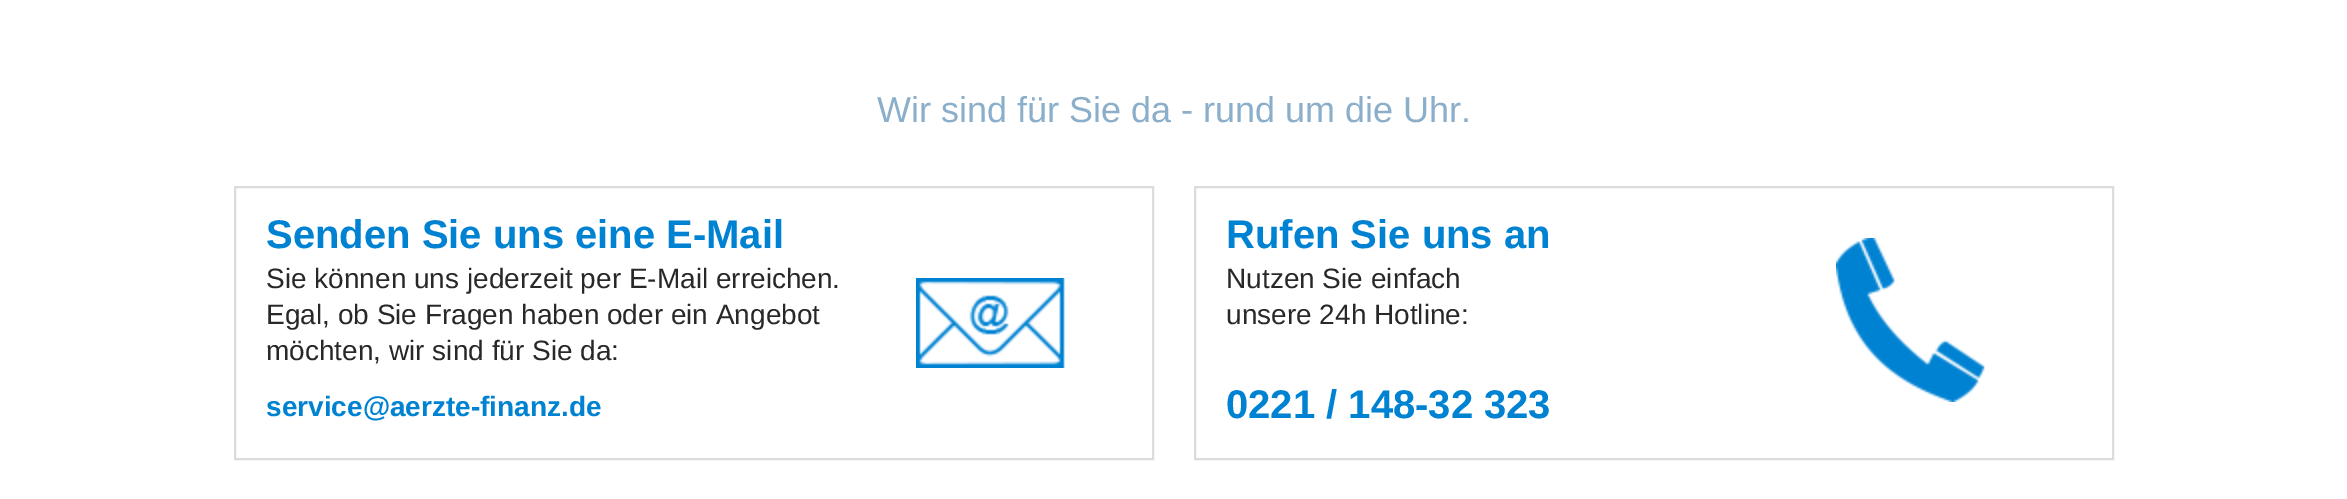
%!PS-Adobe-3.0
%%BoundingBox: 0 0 2347 499
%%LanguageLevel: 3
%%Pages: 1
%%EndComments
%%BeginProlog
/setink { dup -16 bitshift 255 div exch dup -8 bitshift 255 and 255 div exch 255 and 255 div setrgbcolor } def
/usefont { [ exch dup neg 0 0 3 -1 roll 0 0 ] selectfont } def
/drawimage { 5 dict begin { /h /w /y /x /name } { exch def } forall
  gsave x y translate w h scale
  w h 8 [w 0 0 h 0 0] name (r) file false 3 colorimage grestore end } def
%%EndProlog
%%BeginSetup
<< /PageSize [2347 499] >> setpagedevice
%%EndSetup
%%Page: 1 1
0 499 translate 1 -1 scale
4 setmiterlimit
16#FFFFFF setink
0 0 2347 499 rectfill
/LiberationSans-Regular 36 usefont
16#8BAECA setink
877 122 moveto (Wir sind für Sie da - rund um die Uhr.) show
(img1.raw) 916 278 149 90 drawimage
16#DCDCDC setink
2 setlinewidth
235 187 918 272 rectstroke
/LiberationSans-Bold 40 usefont
16#0082D2 setink
266 248 moveto (Senden Sie uns eine E-Mail) show
/LiberationSans-Regular 28 usefont
16#282828 setink
[
    [(Sie können uns jederzeit per E-Mail erreichen.) 266 288]
    [(Egal, ob Sie Fragen haben oder ein Angebot) 266 324]
    [(möchten, wir sind für Sie da:) 266 360]
] { aload pop moveto show } forall
/LiberationSans-Bold 28 usefont
16#0082D2 setink
266 416 moveto (service@aerzte-finanz.de) show
(img2.raw) 1836 238 149 164 drawimage
16#DCDCDC setink
1195 187 918 272 rectstroke
/LiberationSans-Bold 40 usefont
16#0082D2 setink
1226 248 moveto (Rufen Sie uns an) show
/LiberationSans-Regular 28 usefont
16#282828 setink
1226 288 moveto (Nutzen Sie einfach) show
1226 324 moveto (unsere 24h Hotline:) show
/LiberationSans-Bold 40 usefont
16#0082D2 setink
1226 418 moveto (0221 / 148-32 323) show
showpage
%%EOF
